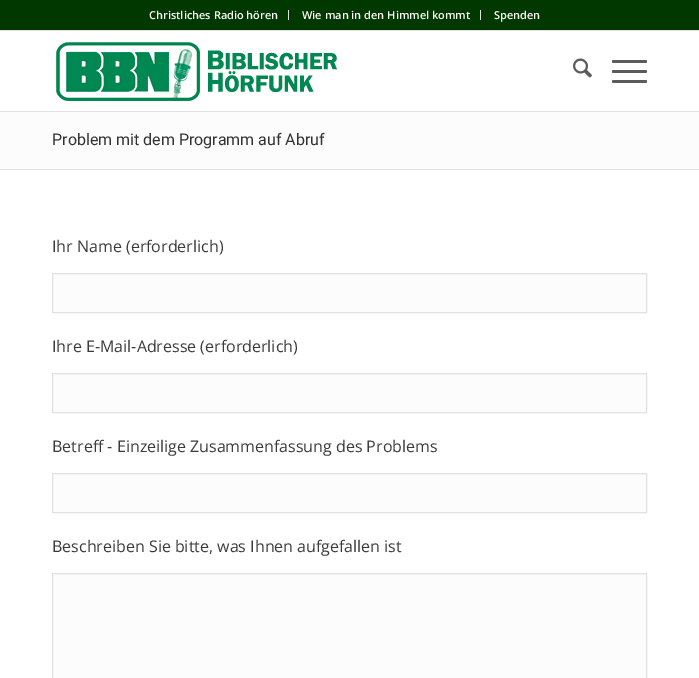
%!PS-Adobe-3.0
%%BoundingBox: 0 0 699 678
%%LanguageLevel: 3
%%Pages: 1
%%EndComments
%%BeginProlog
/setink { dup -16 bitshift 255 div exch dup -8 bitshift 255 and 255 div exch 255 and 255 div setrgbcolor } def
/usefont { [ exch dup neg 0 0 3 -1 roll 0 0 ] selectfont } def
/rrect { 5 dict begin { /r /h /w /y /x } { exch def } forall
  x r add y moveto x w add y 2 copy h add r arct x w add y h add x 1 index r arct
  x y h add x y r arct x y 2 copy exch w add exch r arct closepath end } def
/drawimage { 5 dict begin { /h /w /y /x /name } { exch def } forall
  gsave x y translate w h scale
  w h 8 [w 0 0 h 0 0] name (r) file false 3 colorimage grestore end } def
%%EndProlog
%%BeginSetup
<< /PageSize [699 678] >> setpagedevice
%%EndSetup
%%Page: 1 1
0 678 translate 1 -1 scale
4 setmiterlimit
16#FFFFFF setink
0 0 699 678 rectfill
[
    [0 0 699 30 16#003800]
    [0 30 699 1 16#E1E1E1]
    [288 10 1 10 16#E1E1E1]
] { aload pop setink rectfill } forall
/OpenSans-SemiBold 11 usefont
16#FFFFFF setink
149 19 moveto (Сhristliches Radio hören) show
16#E1E1E1 setink
480 10 1 10 rectfill
16#FFFFFF setink
302 19 moveto (Wie man in den Himmel kommt) show
494 19 moveto (Spenden) show
16#E1E1E1 setink
0 111 699 1 rectfill
(img1.raw) 56 42 281 60 drawimage
(img2.raw) 573 58 19 20 drawimage
16#5C5B5C setink
612 70 35 3 1.5 rrect fill
612 60 35 3 1.5 rrect fill
612 80 35 3 1.5 rrect fill
16#FCFCFC setink
0 112 699 57 rectfill
/Roboto-Regular 16 usefont
16#333333 setink
52 145 moveto (Problem mit dem Programm auf Abruf) show
16#E1E1E1 setink
0 169 699 1 rectfill
/OpenSans-Regular 16 usefont
16#3B3B3B setink
52 252 moveto (Ihr Name \(erforderlich\)) show
16#FCFCFC setink
52.5 273.5 moveto 646.5 273.5 lineto 646.5 312.5 lineto 52.5 312.5 lineto closepath gsave fill grestore
16#E1E1E1 setink
stroke
16#3B3B3B setink
52 352 moveto (Ihre E-Mail-Adresse \(erforderlich\)) show
16#FCFCFC setink
52.5 373.5 moveto 646.5 373.5 lineto 646.5 412.5 lineto 52.5 412.5 lineto closepath gsave fill grestore
16#E1E1E1 setink
stroke
16#3B3B3B setink
52 452 moveto (Betreff - Einzeilige Zusammenfassung des Problems) show
16#FCFCFC setink
52.5 473.5 moveto 646.5 473.5 lineto 646.5 512.5 lineto 52.5 512.5 lineto closepath gsave fill grestore
16#E1E1E1 setink
stroke
16#3B3B3B setink
52 552 moveto (Beschreiben Sie bitte, was Ihnen aufgefallen ist) show
16#FCFCFC setink
52.5 573.5 moveto 646.5 573.5 lineto 646.5 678.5 lineto 52.5 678.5 lineto closepath gsave fill grestore
16#E1E1E1 setink
stroke
showpage
%%EOF
